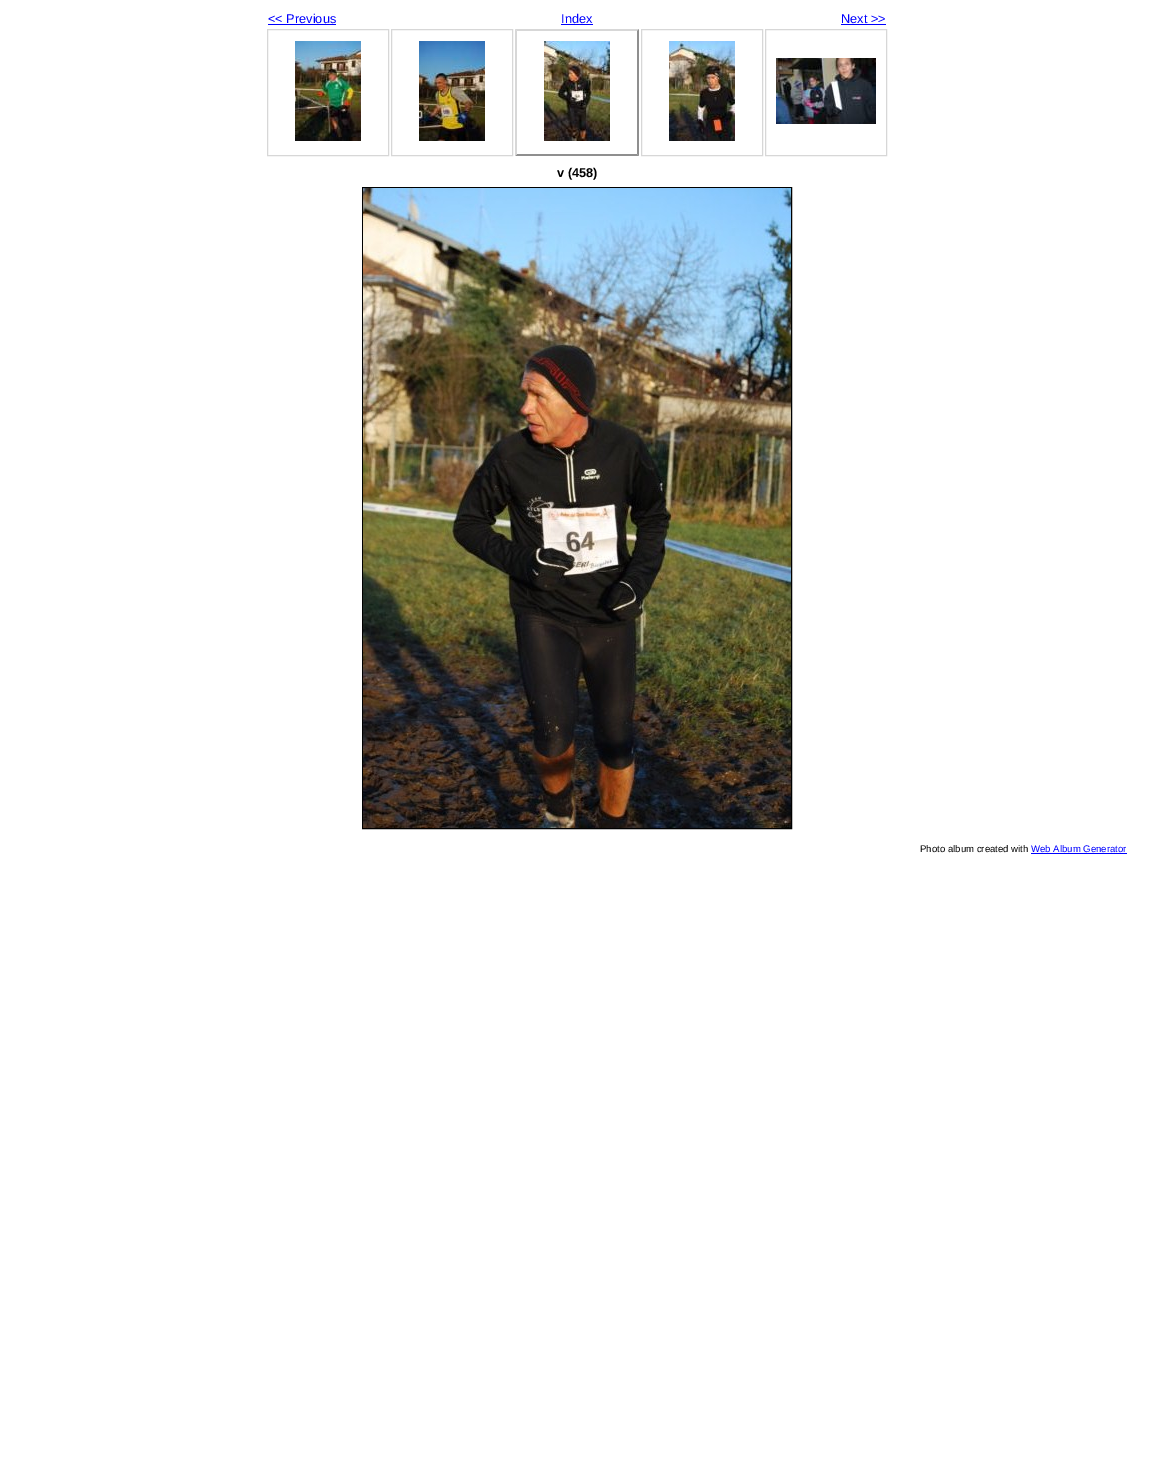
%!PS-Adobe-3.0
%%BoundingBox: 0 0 1154 1475
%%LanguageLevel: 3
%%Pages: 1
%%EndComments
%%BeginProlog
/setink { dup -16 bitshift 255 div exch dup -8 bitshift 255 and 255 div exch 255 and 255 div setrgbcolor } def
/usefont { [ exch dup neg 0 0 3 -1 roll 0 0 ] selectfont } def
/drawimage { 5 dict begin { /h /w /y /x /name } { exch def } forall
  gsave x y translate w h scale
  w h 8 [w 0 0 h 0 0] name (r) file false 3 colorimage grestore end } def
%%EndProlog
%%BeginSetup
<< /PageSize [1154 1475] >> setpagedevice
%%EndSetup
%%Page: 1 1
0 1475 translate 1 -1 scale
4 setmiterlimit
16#FFFFFF setink
0 0 1154 1475 rectfill
/LiberationSans-Regular 12.75 usefont
16#0000FF setink
268 23 moveto (<< Previous) show
268 24 68 1 rectfill
561 23 moveto (Index) show
561 24 32 1 rectfill
841 23 moveto (Next >>) show
841 24 45 1 rectfill
16#D7D7D7 setink
267.5 29.5 121 126 rectstroke
(img1.raw) 295 41 66 100 drawimage
391.5 29.5 121 126 rectstroke
(img2.raw) 419 41 66 100 drawimage
515 29 moveto 639 29 lineto 637 31 lineto 517 31 lineto closepath fill
16#8F8F8F setink
639 29 moveto 639 156 lineto 637 154 lineto 637 31 lineto closepath fill
639 156 moveto 515 156 lineto 517 154 lineto 637 154 lineto closepath fill
16#D7D7D7 setink
515 156 moveto 515 29 lineto 517 31 lineto 517 154 lineto closepath fill
(img3.raw) 544 41 66 100 drawimage
641.5 29.5 121 126 rectstroke
(img4.raw) 669 41 66 100 drawimage
765.5 29.5 121 126 rectstroke
(img5.raw) 776 58 100 66 drawimage
/LiberationSans-Bold 12.75 usefont
16#000000 setink
557 177 moveto (v \(458\)) show
362.5 187.5 429 641 rectstroke
(img6.raw) 363 188 428 640 drawimage
/LiberationSans-Regular 9.6 usefont
920 852 moveto (Photo album created with) show
16#0000FF setink
1031 852 moveto (Web Album Generator) show
1031 853 96 1 rectfill
showpage
%%EOF
